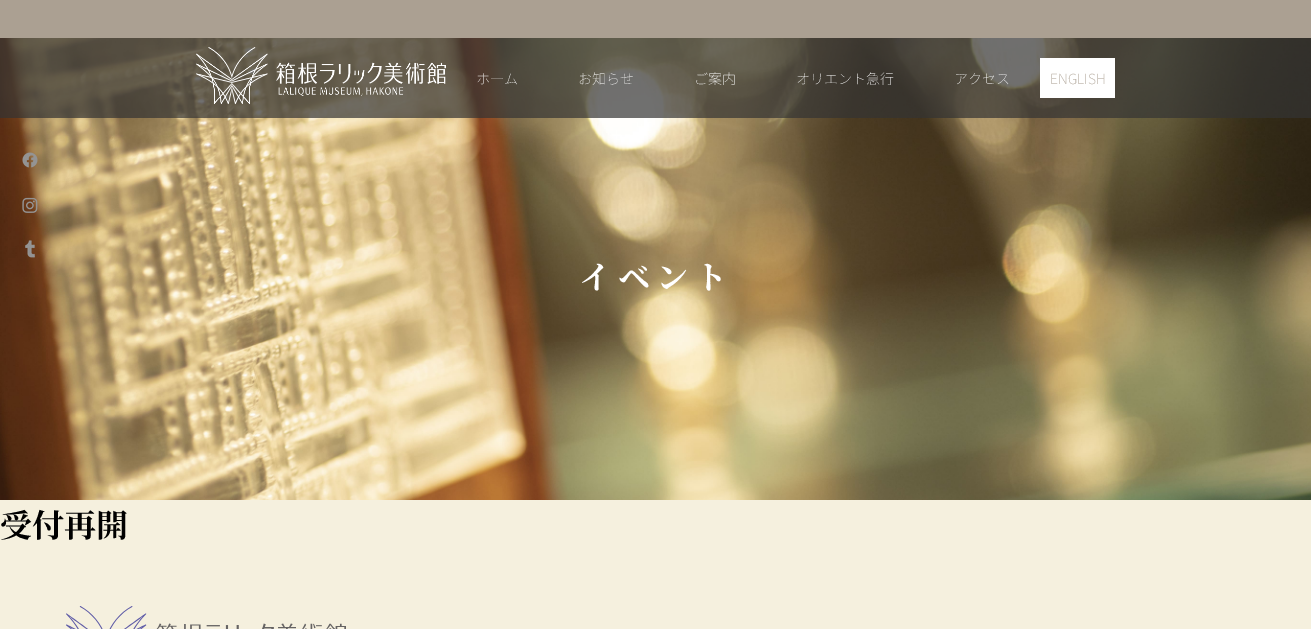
%!PS-Adobe-3.0
%%BoundingBox: 0 0 1311 629
%%LanguageLevel: 3
%%Pages: 1
%%EndComments
%%BeginProlog
/setink { dup -16 bitshift 255 div exch dup -8 bitshift 255 and 255 div exch 255 and 255 div setrgbcolor } def
/usefont { [ exch dup neg 0 0 3 -1 roll 0 0 ] selectfont } def
/setalpha { dup .setfillconstantalpha .setstrokeconstantalpha } def
/drawimage { 5 dict begin { /h /w /y /x /name } { exch def } forall
  gsave x y translate w h scale
  w h 8 [w 0 0 h 0 0] name (r) file false 3 colorimage grestore end } def
%%EndProlog
%%BeginSetup
<< /PageSize [1311 629] /PageUsesTransparency true >> setpagedevice
%%EndSetup
%%Page: 1 1
0 .pushpdf14devicefilter
0 629 translate 1 -1 scale
4 setmiterlimit
16#F5F0DE setink
0 0 1311 629 rectfill
16#ABA092 setink
0 0 1311 38 rectfill
(img5.raw) 0 38 1311 462 drawimage
0.7 setalpha
16#333333 setink
0 38 1311 80 rectfill
1 setalpha
(img1.raw) 196 47 250 58 drawimage
/NotoSansJP-Thin 14 usefont
16#FFFFFF setink
[
    [(ホーム) 476 84]
    [(お知らせ) 578 84]
    [(ご案内) 694 84]
    [(オリエント急行) 796 84]
    [(アクセス) 954 84]
] { aload pop moveto show } forall
1040 58 75 40 rectfill
16#ABA092 setink
1050 84 moveto (ENGLISH) show
(img2.raw) 22 152 16 16 drawimage
(img3.raw) 22 197 16 16 drawimage
(img4.raw) 25 240 10 18 drawimage
/NotoSerifJP-Bold 32 usefont
16#FFFFFF setink
579 289 moveto 6.5 0 (イベント) ashow
16#000000 setink
0 537 moveto (受付再開) show
(img6.raw) 66 606 280 23 drawimage
.poppdf14devicefilter showpage
%%EOF
